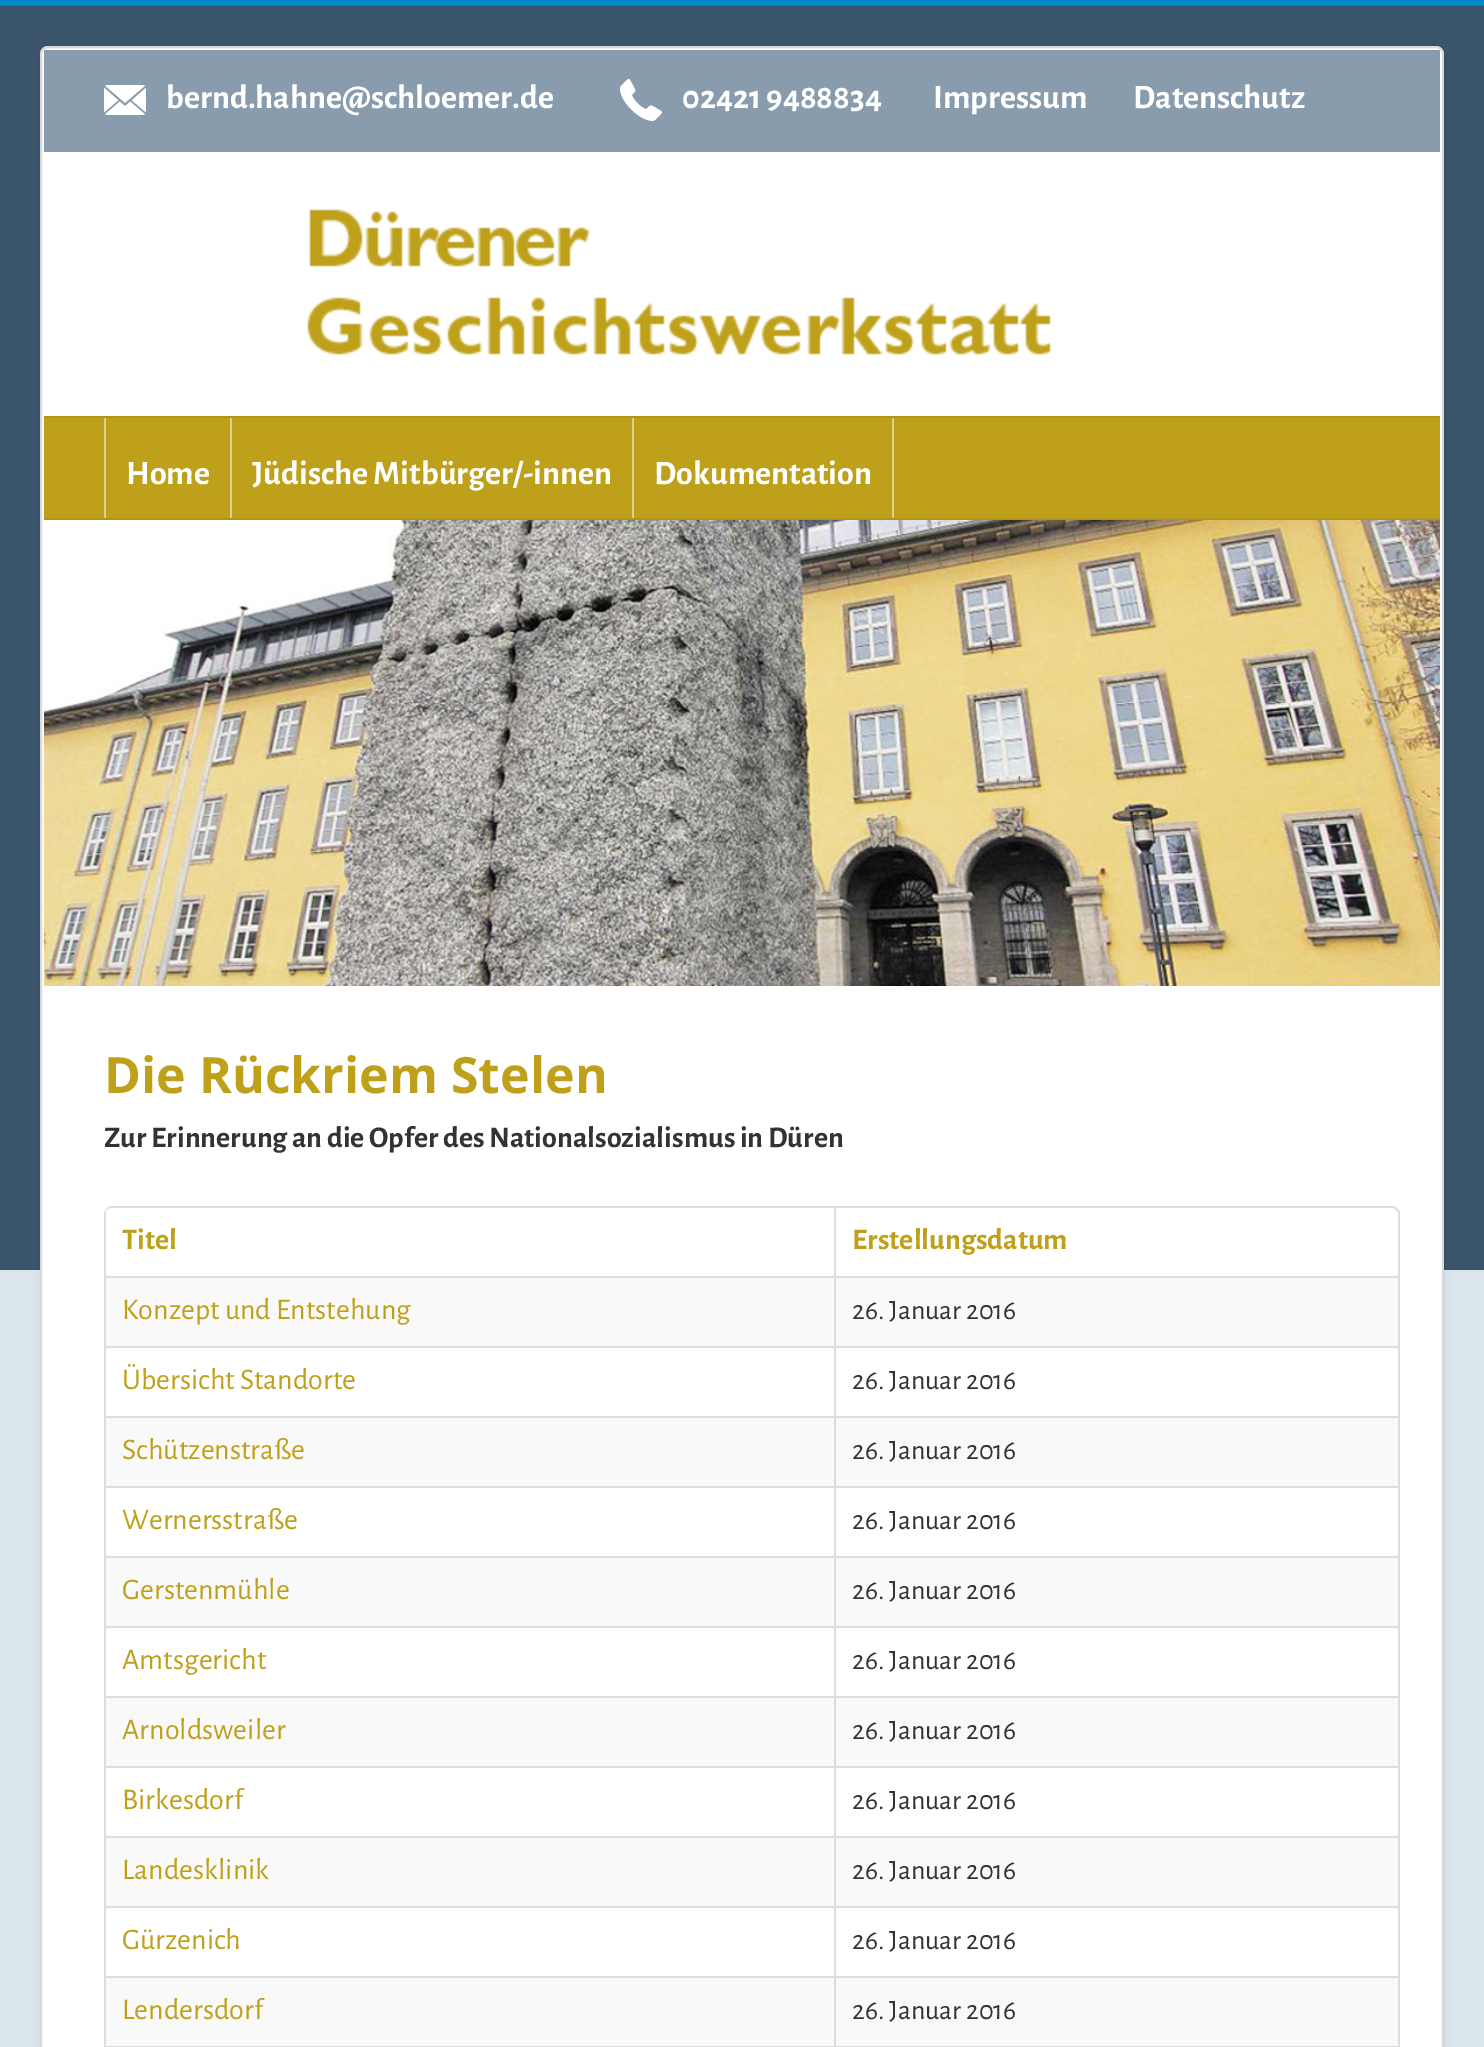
%!PS-Adobe-3.0
%%BoundingBox: 0 0 1484 2047
%%LanguageLevel: 3
%%Pages: 1
%%EndComments
%%BeginProlog
/setink { dup -16 bitshift 255 div exch dup -8 bitshift 255 and 255 div exch 255 and 255 div setrgbcolor } def
/usefont { [ exch dup neg 0 0 3 -1 roll 0 0 ] selectfont } def
/setalpha { dup .setfillconstantalpha .setstrokeconstantalpha } def
/rrect { 5 dict begin { /r /h /w /y /x } { exch def } forall
  x r add y moveto x w add y 2 copy h add r arct x w add y h add x 1 index r arct
  x y h add x y r arct x y 2 copy exch w add exch r arct closepath end } def
/softshadow { 12 dict begin { /a /b /q /h /w /y /x } { exch def } forall gsave /was 0 def
  9 -2 -9 { dup b mul 4 div /e exch def 1 sub .425 mul 2.718 exch exp 1 add a .99 .min exch div /now exch def
    1 1 now sub 1 was sub div sub setalpha /was now def
    w h .min e 2 mul add 0 gt { x e sub y e sub w e 2 mul add h e 2 mul add
      q e add b .6 mul add w h .min 2 div e add .min 0 .max rrect fill } if } for grestore end } def
/drawimage { 5 dict begin { /h /w /y /x /name } { exch def } forall
  gsave x y translate w h scale
  w h 8 [w 0 0 h 0 0] name (r) file false 3 colorimage grestore end } def
%%EndProlog
%%BeginSetup
<< /PageSize [1484 2047] /PageUsesTransparency true >> setpagedevice
%%EndSetup
%%Page: 1 1
0 .pushpdf14devicefilter
0 2047 translate 1 -1 scale
4 setmiterlimit
16#DCE7ED setink
0 0 1484 2047 rectfill
16#3A546B setink
0 6 1484 1264 rectfill
16#0088CC setink
0 0 1484 6 rectfill
16#000000 setink
40 46 1404 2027 8 6 0.05 softshadow
16#FFFFFF setink
40 46 1404 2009 8 rrect fill
0.15 setalpha
16#000000 setink
2 setlinewidth
41 47 1402 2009 7 rrect stroke
1 setalpha
16#899CAD setink
44 50 1396 102 rectfill
(img1.raw) 104 85 42 30 drawimage
/AlegreyaSans-Bold 34 usefont
16#FFFFFF setink
166 108 moveto (bernd.hahne@schloemer.de) show
(img2.raw) 620 79 42 42 drawimage
[
    [(02421 9488834) 682 108]
    [(Impressum) 933 108]
    [(Datenschutz) 1133 108]
] { aload pop moveto show } forall
(img3.raw) 307 209 744 146 drawimage
[
    [44 418 1396 100 16#BEA01A]
    [44 416 1396 2 16#B09418]
    [44 518 1396 2 16#B09418]
    [104 418 2 100 16#DFD08D]
    [230 418 2 100 16#DFD08D]
] { aload pop setink rectfill } forall
16#FFFFFF setink
126 484 moveto (Home) show
16#DFD08D setink
632 418 2 100 rectfill
16#FFFFFF setink
252 484 moveto (Jüdische Mitbürger/-innen) show
16#DFD08D setink
892 418 2 100 rectfill
16#FFFFFF setink
654 484 moveto (Dokumentation) show
(img4.raw) 44 520 1396 466 drawimage
/OpenSans-Bold 50 usefont
16#BEA01A setink
104 1093 moveto (Die Rückriem Stelen) show
/AlegreyaSans-Bold 30 usefont
16#333333 setink
104 1147 moveto (Zur Erinnerung an die Opfer des Nationalsozialismus in Düren) show
16#DDDDDD setink
112 1206 moveto 1392 1206 lineto 1396 1206 1400 1210 1400 1214 curveto 1400 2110 lineto 1400 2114 1396 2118 1392 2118 curveto 112 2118 lineto 108 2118 104 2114 104 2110 curveto 104 1214 lineto 104 1210 108 1206 112 1206 curveto closepath 112 1208 moveto 1392 1208 lineto 1395 1208 1398 1211 1398 1214 curveto 1398 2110 lineto 1398 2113 1395 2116 1392 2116 curveto 112 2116 lineto 108 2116 104 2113 104 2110 curveto 104 1214 lineto 104 1211 108 1208 112 1208 curveto closepath eofill
104 1212 2 64 rectfill
16#BEA01A setink
122 1249 moveto (Titel) show
16#DDDDDD setink
834 1208 2 68 rectfill
16#BEA01A setink
852 1249 moveto (Erstellungsdatum) show
[
    [106 1278 728 68 16#F9F9F9]
    [104 1276 1294 2 16#DDDDDD]
    [104 1276 2 70 16#DDDDDD]
] { aload pop setink rectfill } forall
/AlegreyaSans-Regular 30 usefont
16#BEA01A setink
122 1319 moveto (Konzept und Entstehung) show
16#F9F9F9 setink
836 1278 562 68 rectfill
16#DDDDDD setink
834 1276 2 70 rectfill
/AlegreyaSans-Regular 28 usefont
16#333333 setink
852 1319 moveto (26. Januar 2016) show
16#DDDDDD setink
104 1346 1294 2 rectfill
104 1346 2 70 rectfill
/AlegreyaSans-Regular 30 usefont
16#BEA01A setink
122 1389 moveto (Übersicht Standorte) show
16#DDDDDD setink
834 1346 2 70 rectfill
/AlegreyaSans-Regular 28 usefont
16#333333 setink
852 1389 moveto (26. Januar 2016) show
[
    [106 1418 728 68 16#F9F9F9]
    [104 1416 1294 2 16#DDDDDD]
    [104 1416 2 70 16#DDDDDD]
] { aload pop setink rectfill } forall
/AlegreyaSans-Regular 30 usefont
16#BEA01A setink
122 1459 moveto (Schützenstraße) show
16#F9F9F9 setink
836 1418 562 68 rectfill
16#DDDDDD setink
834 1416 2 70 rectfill
/AlegreyaSans-Regular 28 usefont
16#333333 setink
852 1459 moveto (26. Januar 2016) show
16#DDDDDD setink
104 1486 1294 2 rectfill
104 1486 2 70 rectfill
/AlegreyaSans-Regular 30 usefont
16#BEA01A setink
122 1529 moveto (Wernersstraße) show
16#DDDDDD setink
834 1486 2 70 rectfill
/AlegreyaSans-Regular 28 usefont
16#333333 setink
852 1529 moveto (26. Januar 2016) show
[
    [106 1558 728 68 16#F9F9F9]
    [104 1556 1294 2 16#DDDDDD]
    [104 1556 2 70 16#DDDDDD]
] { aload pop setink rectfill } forall
/AlegreyaSans-Regular 30 usefont
16#BEA01A setink
122 1599 moveto (Gerstenmühle) show
16#F9F9F9 setink
836 1558 562 68 rectfill
16#DDDDDD setink
834 1556 2 70 rectfill
/AlegreyaSans-Regular 28 usefont
16#333333 setink
852 1599 moveto (26. Januar 2016) show
16#DDDDDD setink
104 1626 1294 2 rectfill
104 1626 2 70 rectfill
/AlegreyaSans-Regular 30 usefont
16#BEA01A setink
122 1669 moveto (Amtsgericht) show
16#DDDDDD setink
834 1626 2 70 rectfill
/AlegreyaSans-Regular 28 usefont
16#333333 setink
852 1669 moveto (26. Januar 2016) show
[
    [106 1698 728 68 16#F9F9F9]
    [104 1696 1294 2 16#DDDDDD]
    [104 1696 2 70 16#DDDDDD]
] { aload pop setink rectfill } forall
/AlegreyaSans-Regular 30 usefont
16#BEA01A setink
122 1739 moveto (Arnoldsweiler) show
16#F9F9F9 setink
836 1698 562 68 rectfill
16#DDDDDD setink
834 1696 2 70 rectfill
/AlegreyaSans-Regular 28 usefont
16#333333 setink
852 1739 moveto (26. Januar 2016) show
16#DDDDDD setink
104 1766 1294 2 rectfill
104 1766 2 70 rectfill
/AlegreyaSans-Regular 30 usefont
16#BEA01A setink
122 1809 moveto (Birkesdorf) show
16#DDDDDD setink
834 1766 2 70 rectfill
/AlegreyaSans-Regular 28 usefont
16#333333 setink
852 1809 moveto (26. Januar 2016) show
[
    [106 1838 728 68 16#F9F9F9]
    [104 1836 1294 2 16#DDDDDD]
    [104 1836 2 70 16#DDDDDD]
] { aload pop setink rectfill } forall
/AlegreyaSans-Regular 30 usefont
16#BEA01A setink
122 1879 moveto (Landesklinik) show
16#F9F9F9 setink
836 1838 562 68 rectfill
16#DDDDDD setink
834 1836 2 70 rectfill
/AlegreyaSans-Regular 28 usefont
16#333333 setink
852 1879 moveto (26. Januar 2016) show
16#DDDDDD setink
104 1906 1294 2 rectfill
104 1906 2 70 rectfill
/AlegreyaSans-Regular 30 usefont
16#BEA01A setink
122 1949 moveto (Gürzenich) show
16#DDDDDD setink
834 1906 2 70 rectfill
/AlegreyaSans-Regular 28 usefont
16#333333 setink
852 1949 moveto (26. Januar 2016) show
[
    [106 1978 728 68 16#F9F9F9]
    [104 1976 1294 2 16#DDDDDD]
    [104 1976 2 70 16#DDDDDD]
] { aload pop setink rectfill } forall
/AlegreyaSans-Regular 30 usefont
16#BEA01A setink
122 2019 moveto (Lendersdorf) show
16#F9F9F9 setink
836 1978 562 68 rectfill
16#DDDDDD setink
834 1976 2 70 rectfill
/AlegreyaSans-Regular 28 usefont
16#333333 setink
852 2019 moveto (26. Januar 2016) show
16#DDDDDD setink
104 2046 1294 1 rectfill
.poppdf14devicefilter showpage
%%EOF
